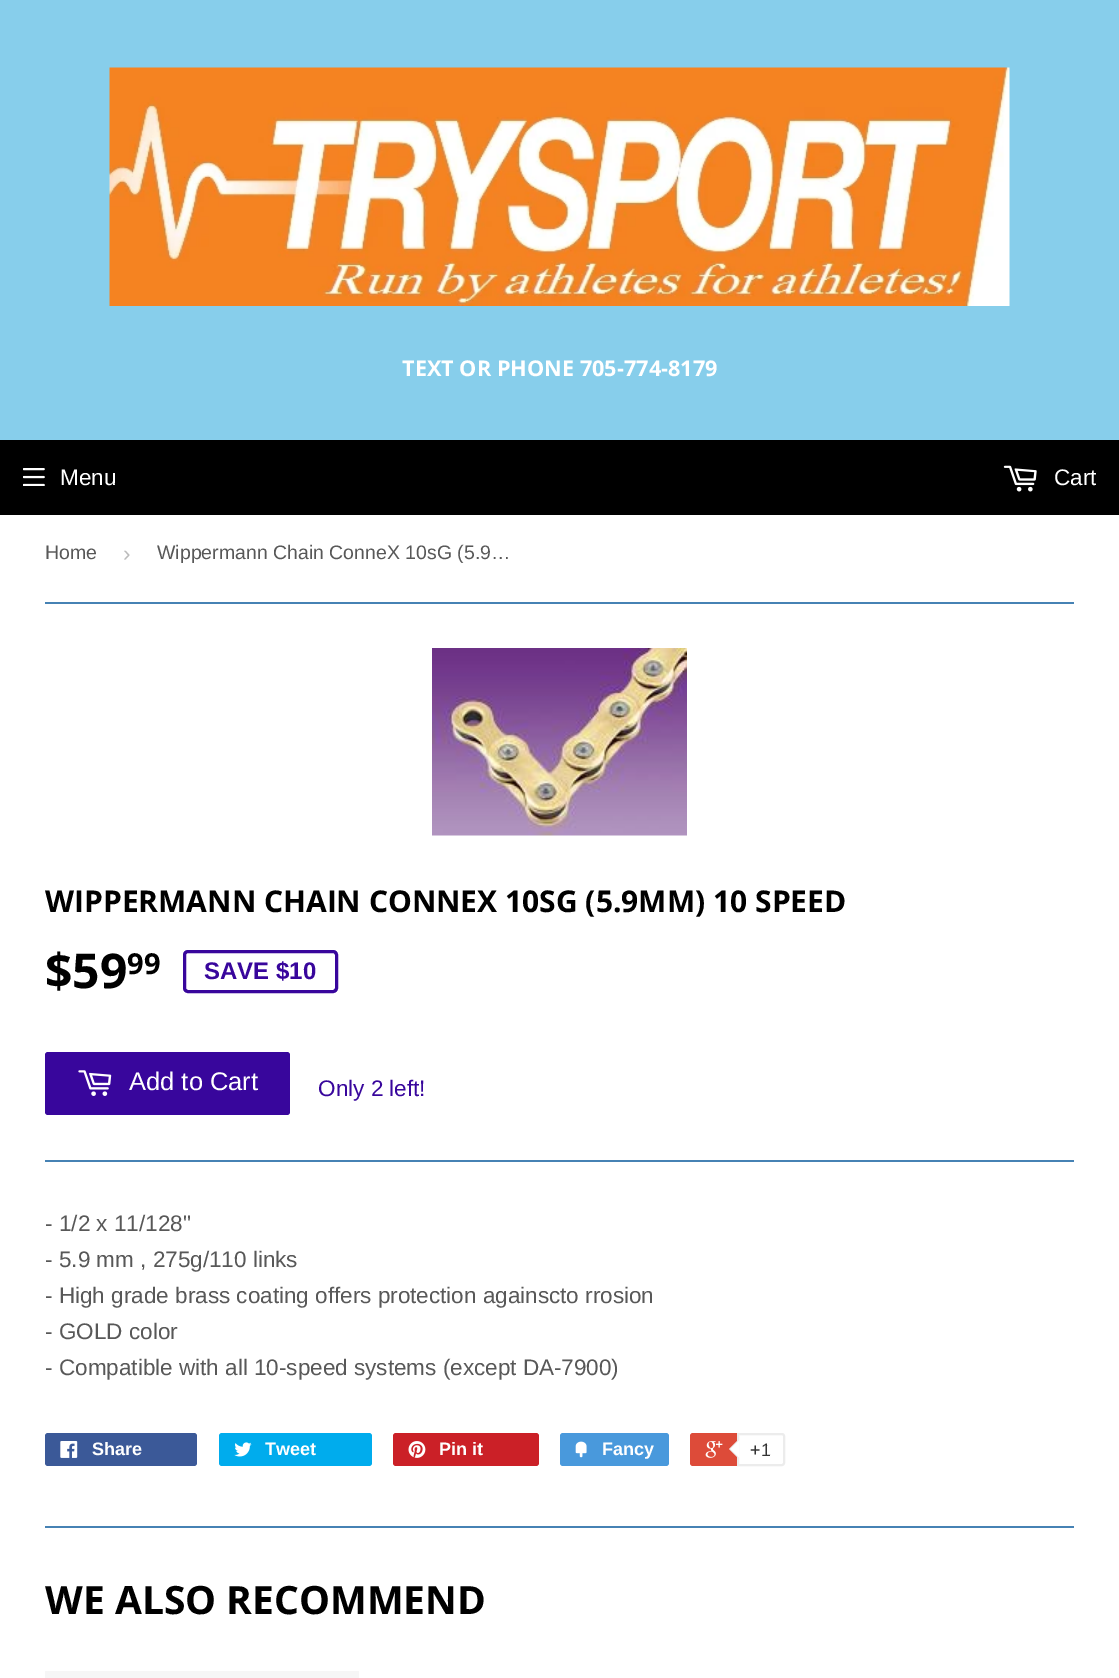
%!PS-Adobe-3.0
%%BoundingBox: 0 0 1119 1678
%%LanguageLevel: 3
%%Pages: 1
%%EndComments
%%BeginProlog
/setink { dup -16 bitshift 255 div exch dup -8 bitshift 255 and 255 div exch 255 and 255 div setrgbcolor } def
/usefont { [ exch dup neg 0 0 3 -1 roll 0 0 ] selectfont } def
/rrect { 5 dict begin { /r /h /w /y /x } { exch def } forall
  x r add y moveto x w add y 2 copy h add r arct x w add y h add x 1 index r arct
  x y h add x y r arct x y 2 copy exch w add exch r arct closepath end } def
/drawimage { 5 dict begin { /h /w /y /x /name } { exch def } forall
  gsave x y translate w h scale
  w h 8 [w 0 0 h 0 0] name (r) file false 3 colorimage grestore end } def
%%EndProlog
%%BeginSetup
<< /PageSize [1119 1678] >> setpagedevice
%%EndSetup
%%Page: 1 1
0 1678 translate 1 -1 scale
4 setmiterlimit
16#FFFFFF setink
0 0 1119 1678 rectfill
16#87CEEB setink
0 0 1119 440 rectfill
(img1.raw) 109 67 901 239 drawimage
/OpenSans-Bold 21.7 usefont
16#FFFFFF setink
402 376 moveto (TEXT OR PHONE 705-774-8179) show
16#000000 setink
0 440 1119 75 rectfill
(img2.raw) 23 468 22 18 drawimage
/LiberationSans-Regular 22.5 usefont
16#FFFFFF setink
60 485 moveto (Menu) show
(img3.raw) 1003 465 34 27 drawimage
1054 485 moveto (Cart) show
16#4682B4 setink
45 602 1029 2 rectfill
/LiberationSans-Regular 19.5 usefont
16#585858 setink
45 559 moveto (Home) show
/LiberationSans-Regular 22.5 usefont
16#BBBBBB setink
123 561 moveto (›) show
/LiberationSans-Regular 19.5 usefont
16#585858 setink
157 559 moveto (Wippermann Chain ConneX 10sG \(5.9…) show
(img4.raw) 432 648 255 188 drawimage
/OpenSans-Bold 30 usefont
16#000000 setink
45 912 moveto (WIPPERMANN CHAIN CONNEX 10SG \(5.9MM\) 10 SPEED) show
/OpenSans-Bold 48 usefont
45 988 moveto ($59) show
/OpenSans-Bold 29 usefont
127 974 moveto (99) show
16#38069C setink
3 setlinewidth
184.5 951.5 152 40 3.5 rrect stroke
/LiberationSans-Bold 24 usefont
204 979 moveto (SAVE $10) show
45 1052 245 63 3 rrect fill
(img5.raw) 78 1070 34 26 drawimage
/LiberationSans-Regular 25.5 usefont
16#FFFFFF setink
129 1090 moveto (Add to Cart) show
/LiberationSans-Regular 22.5 usefont
16#38069C setink
318 1096 moveto (Only 2 left!) show
16#4682B4 setink
45 1160 1029 2 rectfill
16#585858 setink
[
    [(- 1/2 x 11/128") 45 1231]
    [(- 5.9 mm , 275g/110 links) 45 1267]
    [(- High grade brass coating offers protection againscto rrosion) 45 1303]
    [(- GOLD color) 45 1339]
    [(- Compatible with all 10-speed systems \(except DA-7900\)) 45 1375]
] { aload pop moveto show } forall
16#3B5998 setink
45 1433 152 33 3 rrect fill
(img6.raw) 60 1441 18 17 drawimage
/LiberationSans-Bold 18 usefont
16#FFFFFF setink
92 1455 moveto (Share) show
16#00ACED setink
219 1433 153 33 3 rrect fill
(img7.raw) 234 1442 18 15 drawimage
16#FFFFFF setink
265 1455 moveto (Tweet) show
16#CB2027 setink
393 1433 146 33 3 rrect fill
(img8.raw) 408 1441 18 17 drawimage
16#FFFFFF setink
439 1455 moveto (Pin it) show
16#4999DC setink
560 1433 109 33 3 rrect fill
(img9.raw) 575 1441 12 17 drawimage
16#FFFFFF setink
602 1455 moveto (Fancy) show
16#DD4B39 setink
690 1433 92 33 3 rrect fill
(img10.raw) 705 1441 18 17 drawimage
16#FFFFFF setink
738 1434 moveto 782 1434 lineto 783 1434 784 1435 784 1436 curveto 784 1463 lineto 784 1464 783 1465 782 1465 curveto 738 1465 lineto closepath gsave fill grestore
16#ECECEC setink
2 setlinewidth
stroke
738 1440 moveto 738 1458 lineto 729 1449 lineto closepath fill
16#FFFFFF setink
739.5 1440 moveto 739.5 1458 lineto 730.5 1449 lineto closepath fill
/LiberationSans-Regular 18 usefont
16#333333 setink
750 1456 moveto (+1) show
16#4682B4 setink
45 1526 1029 2 rectfill
/OpenSans-Bold 39 usefont
16#000000 setink
45 1614 moveto (WE ALSO RECOMMEND) show
16#F6F6F6 setink
45 1671 314 7 rectfill
showpage
%%EOF
